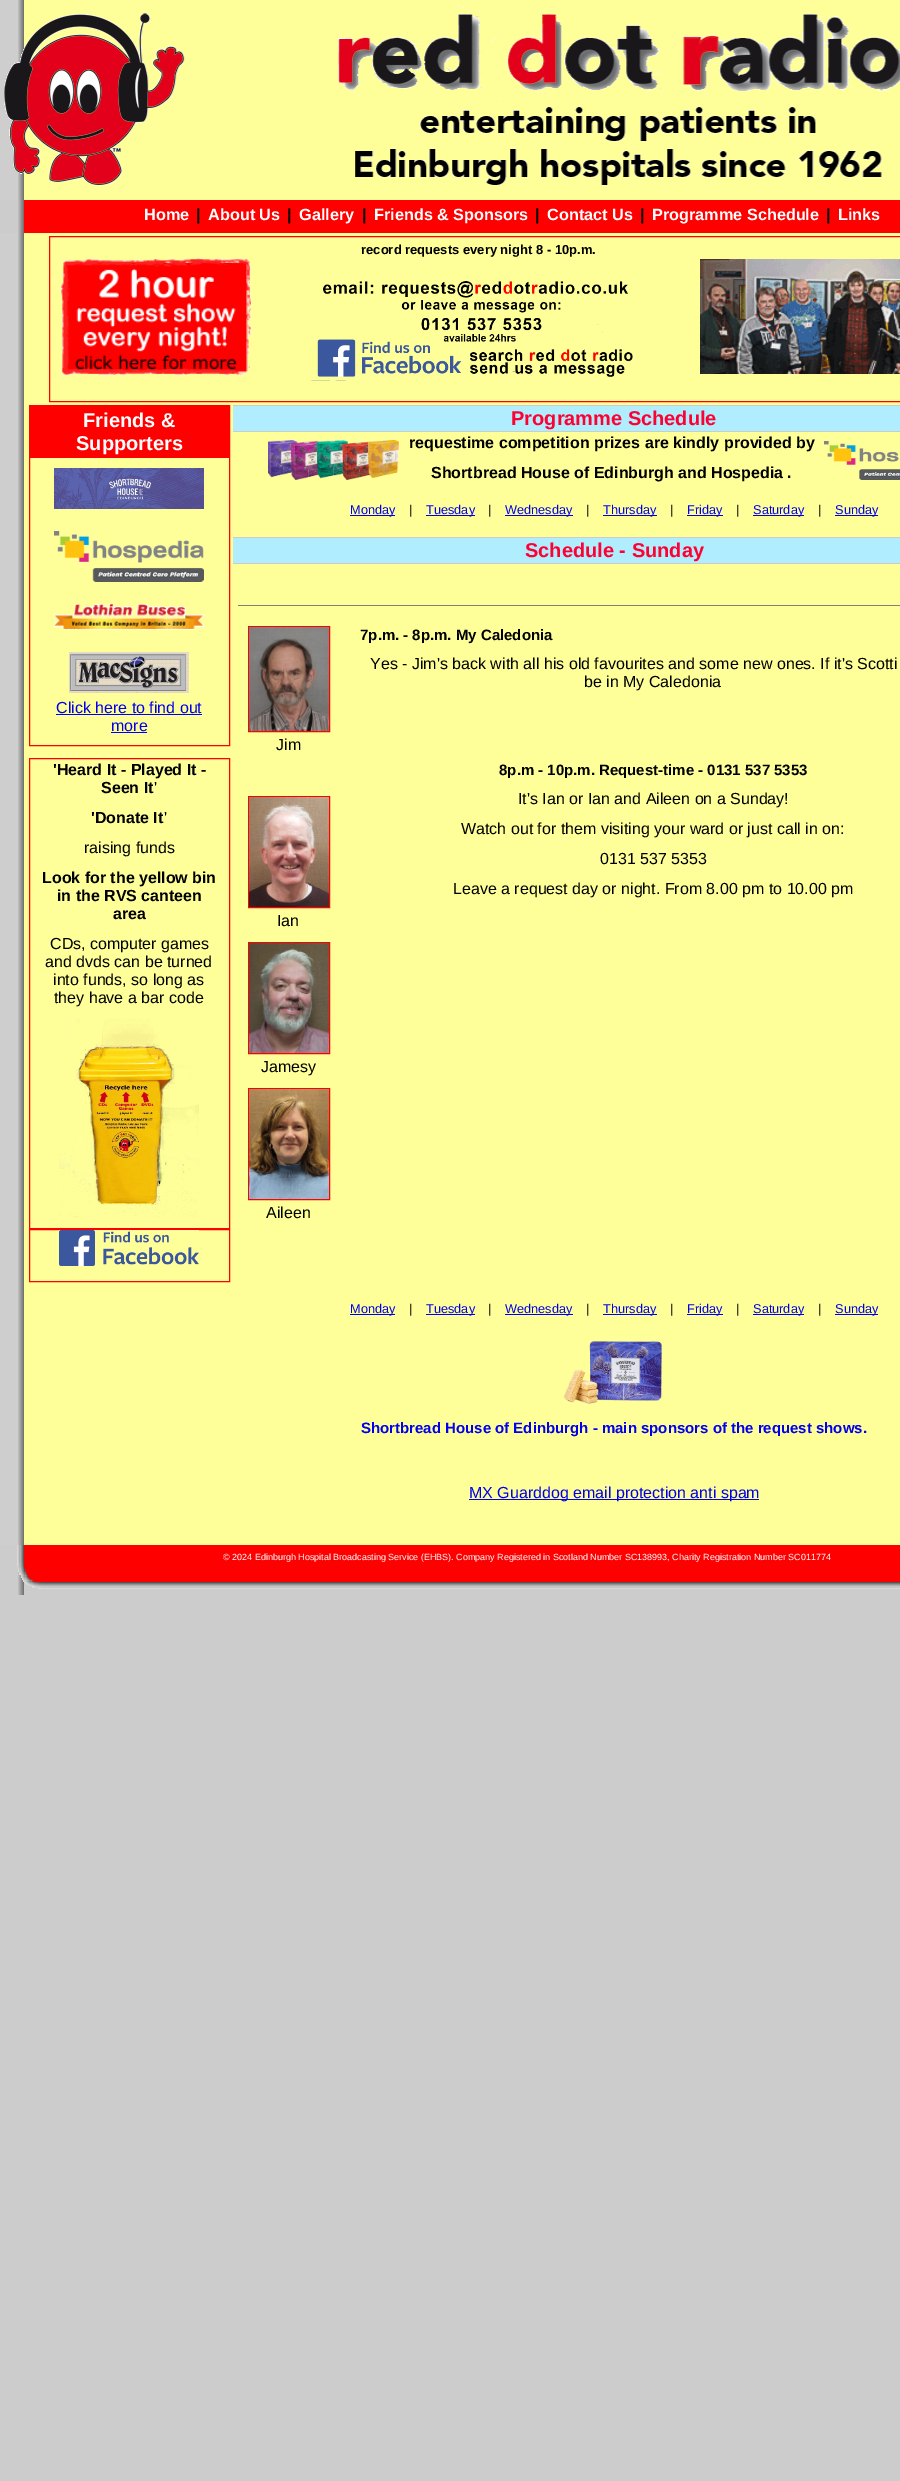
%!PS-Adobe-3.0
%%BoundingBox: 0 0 900 2481
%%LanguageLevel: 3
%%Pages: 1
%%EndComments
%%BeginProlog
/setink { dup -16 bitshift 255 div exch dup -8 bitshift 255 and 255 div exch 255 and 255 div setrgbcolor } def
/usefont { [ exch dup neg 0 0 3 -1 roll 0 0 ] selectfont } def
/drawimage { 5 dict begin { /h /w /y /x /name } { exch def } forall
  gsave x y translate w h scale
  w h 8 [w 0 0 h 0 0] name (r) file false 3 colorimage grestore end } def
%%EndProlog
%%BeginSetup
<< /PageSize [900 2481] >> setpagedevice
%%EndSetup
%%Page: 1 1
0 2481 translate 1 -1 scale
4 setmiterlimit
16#CCCCCC setink
0 0 900 2481 rectfill
16#FFFF99 setink
24 0 876 200 rectfill
(img1.raw) 0 0 24 200 drawimage
(img2.raw) 4 4 896 181 drawimage
(img3.raw) 0 200 900 33 drawimage
/LiberationSans-Bold 16.25 usefont
16#FFFFFF setink
144 220 moveto (Home) show
16#000000 setink
196 220 moveto (|) show
16#FFFFFF setink
208 220 moveto (About Us) show
16#000000 setink
287 220 moveto (|) show
16#FFFFFF setink
299 220 moveto (Gallery) show
16#000000 setink
362 220 moveto (|) show
16#FFFFFF setink
374 220 moveto (Friends & Sponsors) show
16#000000 setink
535 220 moveto (|) show
16#FFFFFF setink
547 220 moveto (Contact Us) show
16#000000 setink
640 220 moveto (|) show
16#FFFFFF setink
652 220 moveto (Programme Schedule) show
16#000000 setink
826 220 moveto (|) show
16#FFFFFF setink
838 220 moveto (Links) show
(img4.raw) 0 233 24 169 drawimage
16#FFFF99 setink
24 233 876 1312 rectfill
16#FF0000 setink
49.5 236.5 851 165 rectstroke
/LiberationSans-Bold 13 usefont
16#000000 setink
361 254 moveto (record requests every night 8 - 10p.m.) show
(img5.raw) 311 281 322 100 drawimage
(img6.raw) 61 258 190 117 drawimage
(img7.raw) 700 259 200 115 drawimage
(img8.raw) 18 1572 6 23 drawimage
(img9.raw) 0 402 24 1143 drawimage
16#FF0000 setink
29.5 405.5 200 340 rectstroke
30 406 199 52 rectfill
/LiberationSans-Bold 20 usefont
16#FFFFFF setink
83 427 moveto (Friends &) show
76 450 moveto (Supporters) show
(img10.raw) 54 468 150 41 drawimage
(img11.raw) 54 531 150 51 drawimage
(img12.raw) 54 604 150 26 drawimage
(img13.raw) 69 652 120 41 drawimage
/LiberationSans-Regular 16 usefont
16#0000EE setink
56 713 moveto (Click here to find out) show
56 714 146 1 rectfill
111 731 moveto (more) show
111 732 36 1 rectfill
16#FF0000 setink
29.5 758.5 200 470 rectstroke
/LiberationSans-Bold 16 usefont
16#000000 setink
53 775 moveto ('Heard It - Played It -) show
101 793 moveto (Seen It) show
/LiberationSans-Regular 16 usefont
154 793 moveto (') show
/LiberationSans-Bold 16 usefont
91 823 moveto ('Donate It) show
/LiberationSans-Regular 16 usefont
164 823 moveto (') show
84 853 moveto (raising funds) show
/LiberationSans-Bold 16 usefont
[
    [(Look for the yellow bin) 42 883]
    [(in the RVS canteen) 57 901]
    [(area) 113 919]
] { aload pop moveto show } forall
/LiberationSans-Regular 16 usefont
[
    [(CDs, computer games) 50 949]
    [(and dvds can be turned) 45 967]
    [(into funds, so long as) 53 985]
    [(they have a bar code) 54 1003]
] { aload pop moveto show } forall
(img14.raw) 59 1019 140 199 drawimage
16#FF0000 setink
29.5 1229.5 200 52 rectstroke
(img15.raw) 59 1230 140 36 drawimage
[
    [233 406 667 25 16#B0EEFF]
    [233 405 667 1 16#CCCCCC]
    [233 431 667 1 16#CCCCCC]
] { aload pop setink rectfill } forall
/LiberationSans-Bold 20 usefont
16#FF0033 setink
511 425 moveto (Programme Schedule) show
(img16.raw) 268 440 131 40 drawimage
/LiberationSans-Bold 16 usefont
16#000000 setink
409 448 moveto (requestime competition prizes are kindly provided by) show
431 478 moveto (Shortbread House of Edinburgh and Hospedia .) show
(img17.raw) 824 441 76 39 drawimage
16#0000EE setink
350 515 45 1 rectfill
/LiberationSans-Regular 12.75 usefont
350 514 moveto (Monday) show
16#000000 setink
409 514 moveto (|) show
16#0000EE setink
426 515 49 1 rectfill
426 514 moveto (Tuesday) show
16#000000 setink
488 514 moveto (|) show
16#0000EE setink
505 515 68 1 rectfill
505 514 moveto (Wednesday) show
16#000000 setink
586 514 moveto (|) show
16#0000EE setink
603 515 54 1 rectfill
603 514 moveto (Thursday) show
16#000000 setink
670 514 moveto (|) show
16#0000EE setink
687 515 36 1 rectfill
687 514 moveto (Friday) show
16#000000 setink
736 514 moveto (|) show
16#0000EE setink
753 515 51 1 rectfill
753 514 moveto (Saturday) show
16#000000 setink
818 514 moveto (|) show
16#0000EE setink
835 515 43 1 rectfill
835 514 moveto (Sunday) show
[
    [233 538 667 25 16#B0EEFF]
    [233 537 667 1 16#CCCCCC]
    [233 563 667 1 16#CCCCCC]
] { aload pop setink rectfill } forall
/LiberationSans-Bold 20 usefont
16#FF0033 setink
525 557 moveto (Schedule - Sunday) show
16#808080 setink
238 605 662 1 rectfill
16#FF0000 setink
248.5 626.5 81 105 rectstroke
(img18.raw) 249 627 80 104 drawimage
/LiberationSans-Regular 16 usefont
16#000000 setink
276 750 moveto (Jim) show
16#FF0000 setink
248.5 796.5 81 111 rectstroke
(img19.raw) 249 797 80 110 drawimage
16#000000 setink
277 926 moveto (Ian) show
16#FF0000 setink
248.5 942.5 81 111 rectstroke
(img20.raw) 249 943 80 110 drawimage
16#000000 setink
261 1072 moveto (Jamesy) show
16#FF0000 setink
248.5 1088.5 81 111 rectstroke
(img21.raw) 249 1089 80 110 drawimage
16#000000 setink
266 1218 moveto (Aileen) show
/LiberationSans-Bold 15 usefont
360 640 moveto (7p.m. - 8p.m. My Caledonia) show
/LiberationSans-Regular 16 usefont
370 669 moveto (Yes - Jim's back with all his old favourites and some new ones. If it's Scotti) show
584 687 moveto (be in My Caledonia) show
/LiberationSans-Bold 15 usefont
499 775 moveto (8p.m - 10p.m. Request-time - 0131 537 5353) show
/LiberationSans-Regular 16 usefont
[
    [(It's Ian or Ian and Aileen on a Sunday!) 518 804]
    [(Watch out for them visiting your ward or just call in on:) 461 834]
    [(0131 537 5353) 600 864]
    [(Leave a request day or night. From 8.00 pm to 10.00 pm) 453 894]
] { aload pop moveto show } forall
16#0000EE setink
350 1314 45 1 rectfill
/LiberationSans-Regular 12.75 usefont
350 1313 moveto (Monday) show
16#000000 setink
409 1313 moveto (|) show
16#0000EE setink
426 1314 49 1 rectfill
426 1313 moveto (Tuesday) show
16#000000 setink
488 1313 moveto (|) show
16#0000EE setink
505 1314 68 1 rectfill
505 1313 moveto (Wednesday) show
16#000000 setink
586 1313 moveto (|) show
16#0000EE setink
603 1314 54 1 rectfill
603 1313 moveto (Thursday) show
16#000000 setink
670 1313 moveto (|) show
16#0000EE setink
687 1314 36 1 rectfill
687 1313 moveto (Friday) show
16#000000 setink
736 1313 moveto (|) show
16#0000EE setink
753 1314 51 1 rectfill
753 1313 moveto (Saturday) show
16#000000 setink
818 1313 moveto (|) show
16#0000EE setink
835 1314 43 1 rectfill
835 1313 moveto (Sunday) show
(img22.raw) 564 1341 98 63 drawimage
/LiberationSans-Bold 15 usefont
361 1433 moveto (Shortbread House of Edinburgh - main sponsors of the request shows.) show
469 1499 290 1 rectfill
/LiberationSans-Regular 16 usefont
469 1498 moveto (MX Guarddog email protection anti spam) show
(img23.raw) 17 1545 883 44 drawimage
/LiberationSans-Regular 9 usefont
16#FFFFFF setink
223 1560 moveto (© 2024 Edinburgh Hospital Broadcasting Service \(EHBS\). Company Registered in Scotland Number SC138993, Charity Registration Number SC011774) show
showpage
%%EOF
